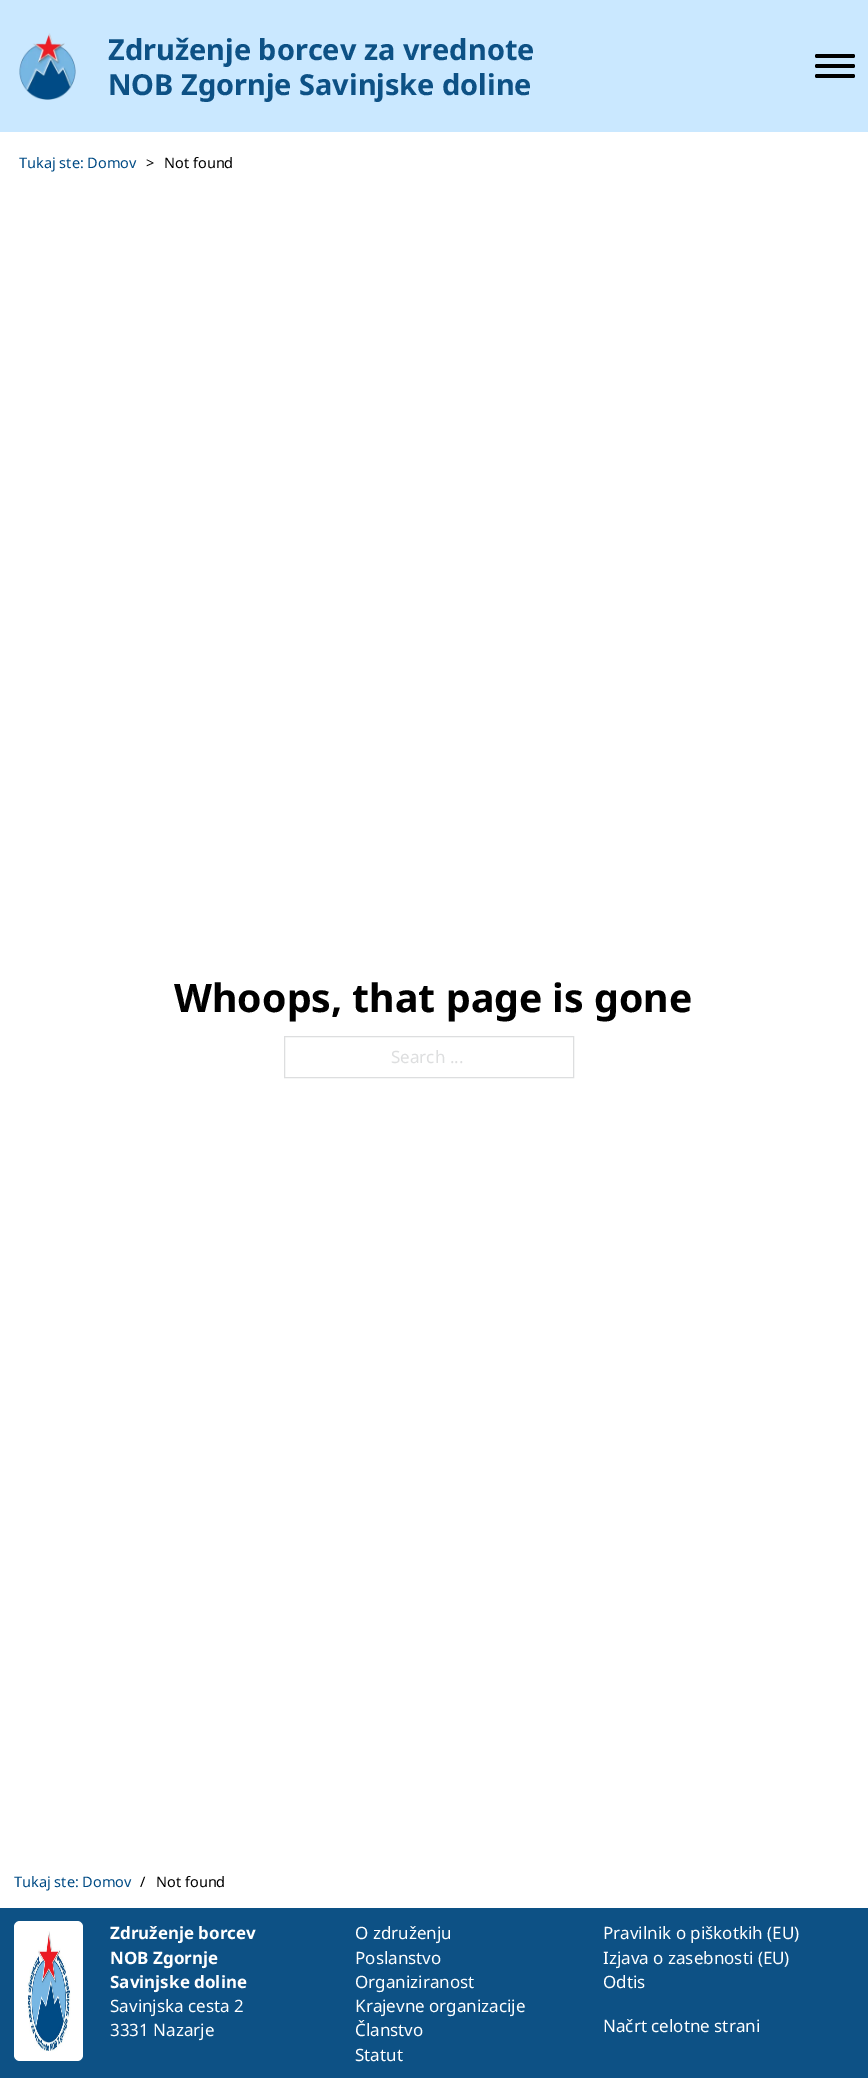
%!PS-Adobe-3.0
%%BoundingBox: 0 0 868 2078
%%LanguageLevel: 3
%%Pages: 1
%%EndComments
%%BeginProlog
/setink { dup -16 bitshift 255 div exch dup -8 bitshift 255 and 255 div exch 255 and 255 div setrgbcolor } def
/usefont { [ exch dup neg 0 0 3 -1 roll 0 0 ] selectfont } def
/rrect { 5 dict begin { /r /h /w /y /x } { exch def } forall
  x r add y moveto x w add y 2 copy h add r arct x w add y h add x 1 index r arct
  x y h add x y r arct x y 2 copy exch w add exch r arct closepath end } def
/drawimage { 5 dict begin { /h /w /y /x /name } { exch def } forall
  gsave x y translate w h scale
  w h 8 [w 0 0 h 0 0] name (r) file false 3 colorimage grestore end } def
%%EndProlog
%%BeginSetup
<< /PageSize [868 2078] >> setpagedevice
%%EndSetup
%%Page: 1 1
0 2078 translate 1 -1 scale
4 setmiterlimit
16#FFFFFF setink
0 0 868 2078 rectfill
16#CAE8FF setink
0 0 868 132 rectfill
(img1.raw) 19 33 57 67 drawimage
/NotoSans-Bold 28.9 usefont
16#0D5185 setink
108 60 moveto (Združenje borcev za vrednote) show
108 95 moveto (NOB Zgornje Savinjske doline) show
16#000000 setink
815 64 40 4 2 rrect fill
815 54 40 4 2 rrect fill
815 74 40 4 2 rrect fill
/NotoSans-Regular 14.5 usefont
16#004B85 setink
19 168 moveto (Tukaj ste: Domov) show
16#000000 setink
146 168 moveto (>) show
164 168 moveto (Not found) show
/NotoSans-Bold 39.25 usefont
174 1012 moveto (Whoops, that page is gone) show
16#DDDEDF setink
284.5 1036.5 289 41 rectstroke
/NotoSans-Regular 17 usefont
391 1063 moveto (Search ...) show
/NotoSans-Regular 14.5 usefont
16#004B85 setink
14 1887 moveto (Tukaj ste: Domov) show
16#000000 setink
140 1887 moveto (/) show
156 1887 moveto (Not found) show
16#0D5185 setink
0 1908 868 170 rectfill
16#FFFFFF setink
14 1921 69 140 6 rrect fill
(img2.raw) 27 1931 44 120 drawimage
/NotoSans-Bold 17 usefont
[
    [(Združenje borcev) 110 1939]
    [(NOB Zgornje) 110 1964]
    [(Savinjske doline) 110 1988]
] { aload pop moveto show } forall
/NotoSans-Regular 17 usefont
[
    [(Savinjska cesta 2) 110 2012]
    [(3331 Nazarje) 110 2036]
    [(O združenju) 355 1939]
    [(Poslanstvo) 355 1964]
    [(Organiziranost) 355 1988]
    [(Krajevne organizacije) 355 2012]
    [(Članstvo) 355 2036]
    [(Statut) 355 2061]
    [(Pravilnik o piškotkih \(EU\)) 603 1939]
    [(Izjava o zasebnosti \(EU\)) 603 1964]
    [(Odtis) 603 1988]
    [(Načrt celotne strani) 603 2032]
] { aload pop moveto show } forall
showpage
%%EOF
